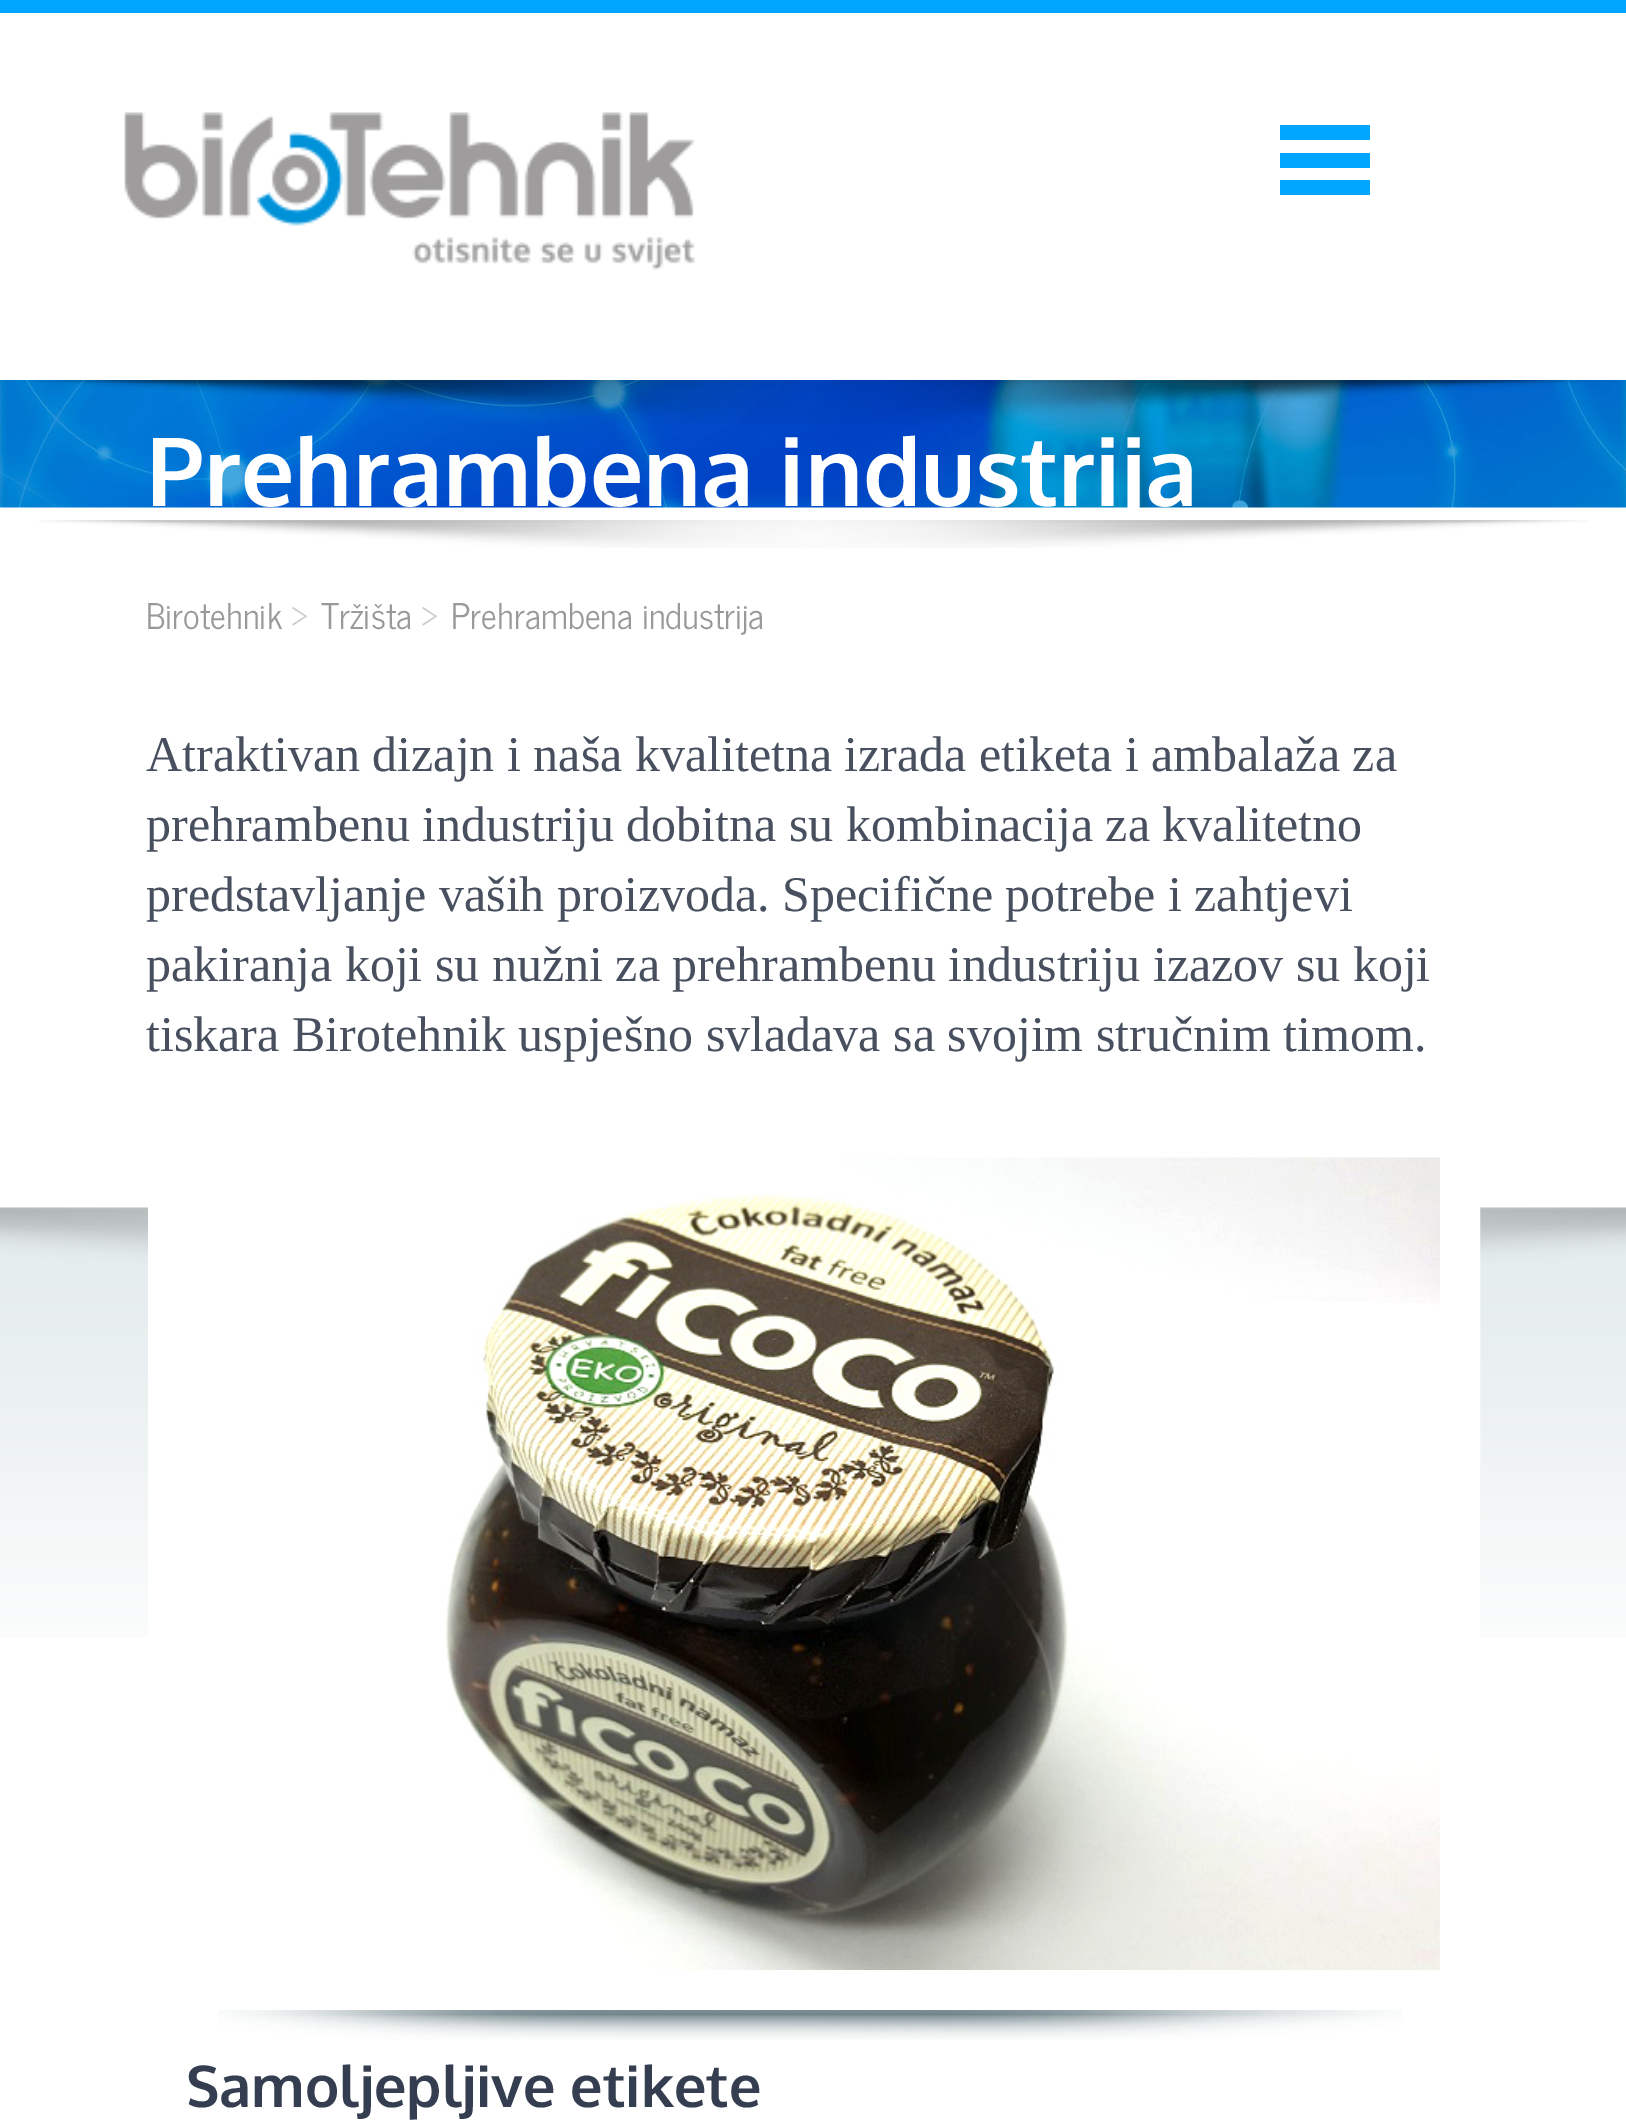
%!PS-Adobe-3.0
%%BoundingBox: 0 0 1626 2121
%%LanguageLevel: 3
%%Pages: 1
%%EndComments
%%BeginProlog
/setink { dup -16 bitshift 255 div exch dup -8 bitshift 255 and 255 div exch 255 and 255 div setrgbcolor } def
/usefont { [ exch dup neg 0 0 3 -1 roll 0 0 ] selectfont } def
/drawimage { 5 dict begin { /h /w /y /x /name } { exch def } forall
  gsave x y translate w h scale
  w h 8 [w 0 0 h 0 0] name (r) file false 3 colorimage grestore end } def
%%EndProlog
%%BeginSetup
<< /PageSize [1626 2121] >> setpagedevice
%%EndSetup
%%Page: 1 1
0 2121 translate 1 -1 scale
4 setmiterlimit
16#FFFFFF setink
0 0 1626 2121 rectfill
16#00A6FF setink
0 0 1626 13 rectfill
(img1.raw) 124 112 571 158 drawimage
[
    [1280 180 90 15 16#00A6FF]
    [1280 153 90 15 16#00A6FF]
    [1280 125 90 15 16#00A6FF]
] { aload pop setink rectfill } forall
(img2.raw) 0 380 1626 128 drawimage
(img3.raw) 24 380 1580 45 drawimage
/Oxygen-Bold 95 usefont
16#FFFFFF setink
146 506 moveto (Prehrambena industrija) show
(img4.raw) 39 520 1550 28 drawimage
/NewsCycle-Regular 35 usefont
16#999999 setink
146 629 moveto (Birotehnik) show
16#CCCCCC setink
291 629 moveto (>) show
16#999999 setink
321 629 moveto (Tržišta) show
16#CCCCCC setink
421 629 moveto (>) show
16#999999 setink
451 629 moveto (Prehrambena industrija) show
/LiberationSerif-Regular 50 usefont
16#48505F setink
[
    [(Atraktivan dizajn i naša kvalitetna izrada etiketa i ambalaža za) 146 771]
    [(prehrambenu industriju dobitna su kombinacija za kvalitetno) 146 841]
    [(predstavljanje vaših proizvoda. Specifične potrebe i zahtjevi) 146 911]
    [(pakiranja koji su nužni za prehrambenu industriju izazov su koji) 146 981]
    [(tiskara Birotehnik uspješno svladava sa svojim stručnim timom.) 146 1051]
] { aload pop moveto show } forall
(img5.raw) 0 1207 1626 430 drawimage
16#FFFFFF setink
40 setlinewidth
168 1138 1292 852 rectstroke
(img6.raw) 188 1157 1252 813 drawimage
(img7.raw) 219 2010 1184 30 drawimage
/Oxygen-Bold 57.5 usefont
16#343E50 setink
186 2107 moveto (Samoljepljive etikete) show
showpage
%%EOF
